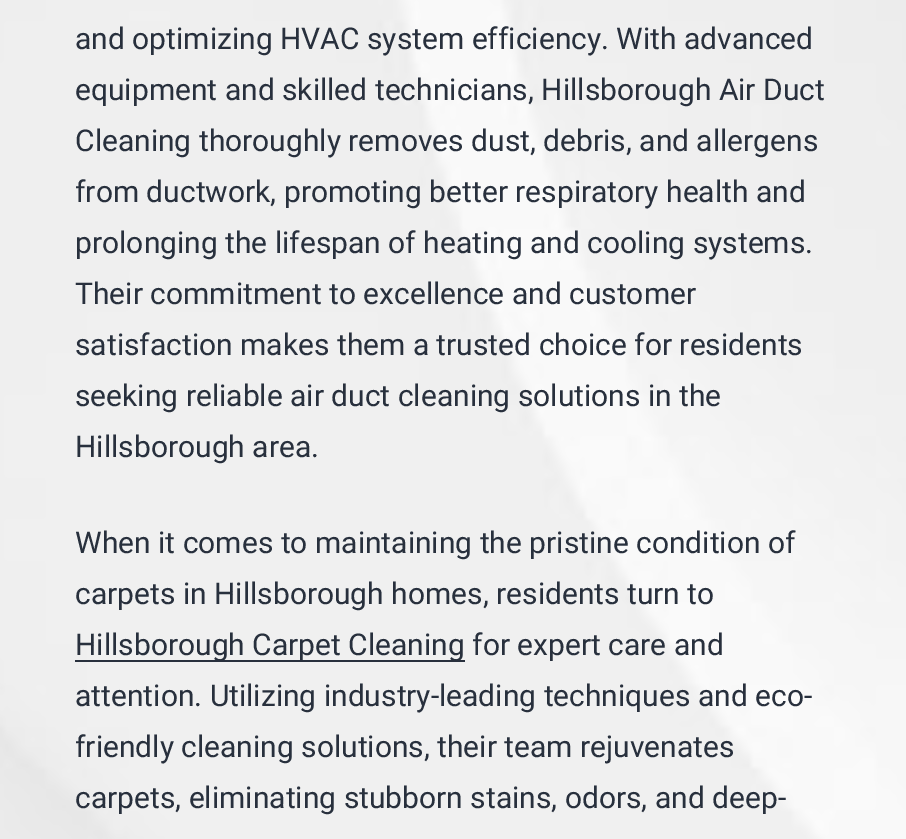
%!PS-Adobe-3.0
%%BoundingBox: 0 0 906 839
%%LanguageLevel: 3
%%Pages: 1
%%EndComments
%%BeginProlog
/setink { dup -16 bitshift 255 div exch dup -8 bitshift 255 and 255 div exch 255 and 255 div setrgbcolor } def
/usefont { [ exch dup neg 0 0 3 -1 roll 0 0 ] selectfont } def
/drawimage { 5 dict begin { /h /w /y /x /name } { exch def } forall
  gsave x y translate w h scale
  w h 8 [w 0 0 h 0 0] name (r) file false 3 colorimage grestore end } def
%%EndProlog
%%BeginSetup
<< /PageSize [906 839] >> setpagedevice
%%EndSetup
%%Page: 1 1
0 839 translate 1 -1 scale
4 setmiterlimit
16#FFFFFF setink
0 0 906 839 rectfill
(img1.raw) 0 0 906 839 drawimage
/Roboto-Regular 30 usefont
16#28303D setink
[
    [(and optimizing HVAC system efficiency. With advanced) 75 49]
    [(equipment and skilled technicians, Hillsborough Air Duct) 75 100]
    [(Cleaning thoroughly removes dust, debris, and allergens) 75 151]
    [(from ductwork, promoting better respiratory health and) 75 202]
    [(prolonging the lifespan of heating and cooling systems.) 75 253]
    [(Their commitment to excellence and customer) 75 304]
    [(satisfaction makes them a trusted choice for residents) 75 355]
    [(seeking reliable air duct cleaning solutions in the) 75 406]
    [(Hillsborough area.) 75 457]
    [(When it comes to maintaining the pristine condition of) 75 553]
    [(carpets in Hillsborough homes, residents turn to) 75 604]
] { aload pop moveto show } forall
75 660 390 2 rectfill
[
    [(Hillsborough Carpet Cleaning for expert care and) 75 655]
    [(attention. Utilizing industry-leading techniques and eco-) 75 706]
    [(friendly cleaning solutions, their team rejuvenates) 75 757]
    [(carpets, eliminating stubborn stains, odors, and deep-) 75 808]
] { aload pop moveto show } forall
showpage
%%EOF
